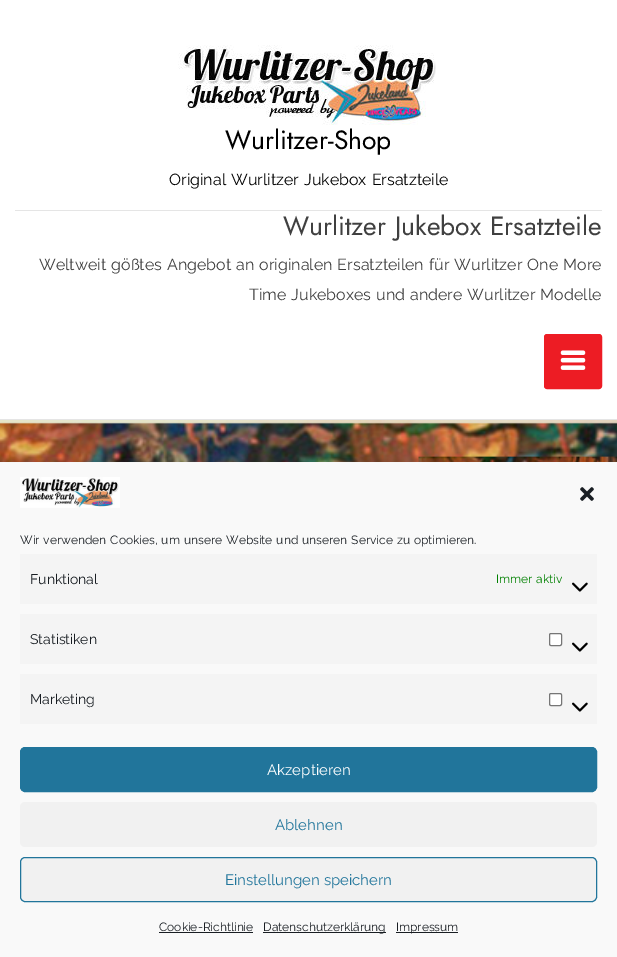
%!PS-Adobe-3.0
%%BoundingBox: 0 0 617 957
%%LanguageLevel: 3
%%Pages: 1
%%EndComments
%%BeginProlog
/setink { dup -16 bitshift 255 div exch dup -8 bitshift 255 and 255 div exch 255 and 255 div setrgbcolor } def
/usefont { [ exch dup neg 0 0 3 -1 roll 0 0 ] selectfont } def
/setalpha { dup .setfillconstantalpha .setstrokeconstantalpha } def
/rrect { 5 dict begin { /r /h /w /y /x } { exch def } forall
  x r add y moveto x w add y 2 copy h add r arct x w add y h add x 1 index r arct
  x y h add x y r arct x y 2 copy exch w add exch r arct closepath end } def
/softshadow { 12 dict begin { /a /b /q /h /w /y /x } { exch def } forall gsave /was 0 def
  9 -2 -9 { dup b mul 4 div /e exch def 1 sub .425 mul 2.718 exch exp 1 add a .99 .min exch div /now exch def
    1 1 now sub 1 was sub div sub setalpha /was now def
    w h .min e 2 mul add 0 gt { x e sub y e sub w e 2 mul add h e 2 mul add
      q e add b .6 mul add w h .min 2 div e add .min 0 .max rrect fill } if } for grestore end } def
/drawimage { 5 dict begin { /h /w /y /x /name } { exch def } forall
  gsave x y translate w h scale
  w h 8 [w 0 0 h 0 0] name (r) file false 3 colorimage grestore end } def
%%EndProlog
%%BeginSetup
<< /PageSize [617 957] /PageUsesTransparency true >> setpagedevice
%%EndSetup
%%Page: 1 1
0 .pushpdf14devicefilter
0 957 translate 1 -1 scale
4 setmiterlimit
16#FFFFFF setink
0 0 617 957 rectfill
16#E5E5E5 setink
0 419 617 1 rectfill
15 210 587 1 rectfill
(img1.raw) 178 45 258 80 drawimage
/Jost-Regular 26.4 usefont
16#000000 setink
225 149 moveto (Wurlitzer-Shop) show
/Raleway-Regular 16 usefont
169 185 moveto 1 0 32 (Original Wurlitzer Jukebox Ersatzteile) widthshow
/Jost-Regular 26.4 usefont
16#404040 setink
283 235 moveto 1 0 32 (Wurlitzer Jukebox Ersatzteile) widthshow
/Raleway-Regular 16 usefont
39 270 moveto 1 0 32 (Weltweit gößtes Angebot an originalen Ersatzteilen für Wurlitzer One More) widthshow
249 300 moveto 1 0 32 (Time Jukeboxes und andere Wurlitzer Modelle) widthshow
16#ED1C24 setink
544.5 334.5 57 54 2.5 rrect gsave fill grestore
stroke
(img2.raw) 560 350 26 20 drawimage
(img3.raw) 0 420 617 42 drawimage
16#000000 setink
0 472 617 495 0 10 0.19 softshadow
16#F9F9F9 setink
0 463 617 494 rectfill
(img4.raw) 20 477 100 31 drawimage
(img5.raw) 580 487 14 14 drawimage
/Raleway-Regular 12 usefont
16#191E23 setink
20 544 moveto 1 0 32 (Wir verwenden Cookies, um unsere Website und unseren Service zu optimieren.) widthshow
16#F4F4F4 setink
20 554 577 50 rectfill
/Raleway-Regular 14 usefont
16#191E23 setink
30 584 moveto (Funktional) show
/Raleway-Regular 12 usefont
16#008000 setink
496 583 moveto 1 0 32 (Immer aktiv) widthshow
(img6.raw) 572 582 16 10 drawimage
16#F4F4F4 setink
20 614 577 50 rectfill
/Raleway-Regular 14 usefont
16#191E23 setink
30 644 moveto (Statistiken) show
16#FFFFFF setink
549.5 633.5 12 12 1.5 rrect gsave fill grestore
16#767676 setink
stroke
(img6.raw) 572 642 16 10 drawimage
16#F4F4F4 setink
20 674 577 50 rectfill
16#191E23 setink
30 704 moveto (Marketing) show
16#FFFFFF setink
549.5 693.5 12 12 1.5 rrect gsave fill grestore
16#767676 setink
stroke
(img6.raw) 572 702 16 10 drawimage
16#21759B setink
20.5 747.5 576 44 4.5 rrect gsave fill grestore
stroke
/Raleway-Regular 15 usefont
16#FFFFFF setink
267 775 moveto (Akzeptieren) show
16#F1F1F1 setink
20 802 577 45 5 rrect fill
16#21759B setink
275 830 moveto (Ablehnen) show
16#F1F1F1 setink
20.5 857.5 576 44 4.5 rrect gsave fill grestore
16#21759B setink
stroke
225 885 moveto (Einstellungen speichern) show
/Raleway-Regular 12 usefont
16#191E23 setink
159 931 moveto (Cookie-Richtlinie) show
159 932 94 1 rectfill
263 932 123 1 rectfill
263 931 moveto (Datenschutzerklärung) show
396 932 62 1 rectfill
396 931 moveto (Impressum) show
.poppdf14devicefilter showpage
%%EOF
